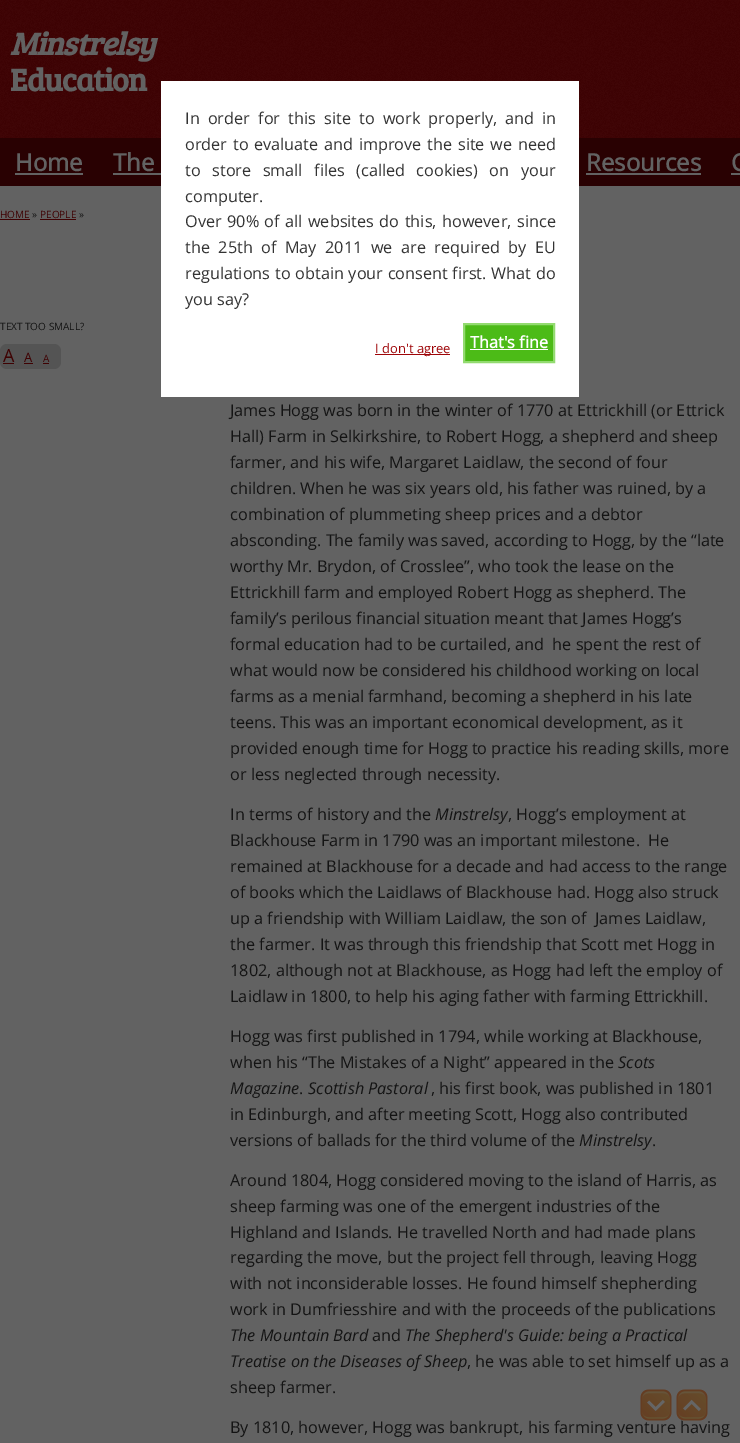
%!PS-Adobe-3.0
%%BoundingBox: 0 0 740 1443
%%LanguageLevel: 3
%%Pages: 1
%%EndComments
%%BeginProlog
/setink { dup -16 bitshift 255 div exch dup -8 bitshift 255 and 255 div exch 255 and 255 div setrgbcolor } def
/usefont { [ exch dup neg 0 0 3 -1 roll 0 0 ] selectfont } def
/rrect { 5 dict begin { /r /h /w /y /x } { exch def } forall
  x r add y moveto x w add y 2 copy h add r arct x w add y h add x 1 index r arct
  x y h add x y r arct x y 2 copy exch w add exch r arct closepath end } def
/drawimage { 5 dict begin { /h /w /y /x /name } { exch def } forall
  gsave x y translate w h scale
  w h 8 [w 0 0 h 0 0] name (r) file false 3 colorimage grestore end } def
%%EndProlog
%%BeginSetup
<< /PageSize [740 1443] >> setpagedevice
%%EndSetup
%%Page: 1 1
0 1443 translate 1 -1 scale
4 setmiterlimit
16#626262 setink
0 0 740 1443 rectfill
(img1.raw) 0 0 740 138 drawimage
/BreeSerif-BoldItalic 32 usefont
10 55 moveto -1 0 (Minstrelsy) ashow
/BreeSerif-Bold 32 usefont
10 91 moveto -1 0 (Education) ashow
16#290102 setink
0 138 740 48 rectfill
/OpenSans-Bold 24 usefont
16#626262 setink
15 171 moveto (Home) show
15 173 68 2 rectfill
113 171 moveto (The) show
113 173 48 2 rectfill
586 171 moveto (Resources) show
586 173 115 2 rectfill
731 171 moveto (C) show
731 173 9 2 rectfill
/OpenSans-Regular 10 usefont
16#3F0203 setink
0 218 moveto (HOME) show
0 219 30 1 rectfill
16#141414 setink
32 218 moveto (») show
16#3F0203 setink
40 218 moveto (PEOPLE) show
40 219 36 1 rectfill
16#141414 setink
79 218 moveto (») show
0 330 moveto (TEXT TOO SMALL?) show
16#545454 setink
0 344 61 25 7 rrect fill
/OpenSans-Regular 18 usefont
16#3F0203 setink
3 362 moveto (A) show
3 363 11 1 rectfill
/OpenSans-Regular 13 usefont
24 362 moveto (A) show
24 363 9 1 rectfill
/OpenSans-Regular 10 usefont
43 362 moveto (A) show
43 363 6 1 rectfill
/OpenSans-Regular 16.25 usefont
16#141414 setink
[
    [(James Hogg was born in the winter of 1770 at Ettrickhill \(or Ettrick) 230 416]
    [(Hall\) Farm in Selkirkshire, to Robert Hogg, a shepherd and sheep) 230 442]
    [(farmer, and his wife, Margaret Laidlaw, the second of four) 230 468]
    [(children. When he was six years old, his father was ruined, by a) 230 494]
    [(combination of plummeting sheep prices and a debtor) 230 520]
    [(absconding. The family was saved, according to Hogg, by the “late) 230 546]
    [(worthy Mr. Brydon, of Crosslee”, who took the lease on the) 230 572]
    [(Ettrickhill farm and employed Robert Hogg as shepherd. The) 230 598]
    [(family’s perilous financial situation meant that James Hogg’s) 230 624]
    [(formal education had to be curtailed, and  he spent the rest of) 230 650]
    [(what would now be considered his childhood working on local) 230 676]
    [(farms as a menial farmhand, becoming a shepherd in his late) 230 702]
    [(teens. This was an important economical development, as it) 230 728]
    [(provided enough time for Hogg to practice his reading skills, more) 230 754]
    [(or less neglected through necessity.) 230 780]
    [(In terms of history and the) 230 820]
] { aload pop moveto show } forall
/OpenSans-Italic 16.25 usefont
435 820 moveto (Minstrelsy) show
/OpenSans-Regular 16.25 usefont
[
    [(, Hogg’s employment at) 508 820]
    [(Blackhouse Farm in 1790 was an important milestone.  He) 230 846]
    [(remained at Blackhouse for a decade and had access to the range) 230 872]
    [(of books which the Laidlaws of Blackhouse had. Hogg also struck) 230 898]
    [(up a friendship with William Laidlaw, the son of  James Laidlaw,) 230 924]
    [(the farmer. It was through this friendship that Scott met Hogg in) 230 950]
    [(1802, although not at Blackhouse, as Hogg had left the employ of) 230 976]
    [(Laidlaw in 1800, to help his aging father with farming Ettrickhill.) 230 1002]
    [(Hogg was first published in 1794, while working at Blackhouse,) 230 1042]
    [(when his “The Mistakes of a Night” appeared in the) 230 1068]
] { aload pop moveto show } forall
/OpenSans-Italic 16.25 usefont
618 1068 moveto (Scots) show
230 1094 moveto (Magazine) show
/OpenSans-Regular 16.25 usefont
299 1094 moveto (.) show
/OpenSans-Italic 16.25 usefont
308 1094 moveto (Scottish Pastoral) show
/OpenSans-Regular 16.25 usefont
[
    [(, his first book, was published in 1801) 431 1094]
    [(in Edinburgh, and after meeting Scott, Hogg also contributed) 230 1120]
    [(versions of ballads for the third volume of the) 230 1146]
] { aload pop moveto show } forall
/OpenSans-Italic 16.25 usefont
579 1146 moveto (Minstrelsy) show
/OpenSans-Regular 16.25 usefont
[
    [(.) 652 1146]
    [(Around 1804, Hogg considered moving to the island of Harris, as) 230 1186]
    [(sheep farming was one of the emergent industries of the) 230 1212]
    [(Highland and Islands. He travelled North and had made plans) 230 1238]
    [(regarding the move, but the project fell through, leaving Hogg) 230 1263]
    [(with not inconsiderable losses. He found himself shepherding) 230 1289]
    [(work in Dumfriesshire and with the proceeds of the publications) 230 1315]
] { aload pop moveto show } forall
/OpenSans-Italic 16.25 usefont
230 1341 moveto (The Mountain Bard) show
/OpenSans-Regular 16.25 usefont
372 1341 moveto (and) show
/OpenSans-Italic 16.25 usefont
405 1341 moveto (The Shepherd's Guide: being a Practical) show
230 1367 moveto (Treatise on the Diseases of Sheep) show
/OpenSans-Regular 16.25 usefont
[
    [(, he was able to set himself up as a) 467 1367]
    [(sheep farmer.) 230 1393]
    [(By 1810, however, Hogg was bankrupt, his farming venture having) 230 1433]
] { aload pop moveto show } forall
16#FFFFFF setink
161 81 418 316 rectfill
16#333333 setink
185 124 moveto 4 0 32 (In order for this site to work properly, and in) widthshow
185 150 moveto 1.5 0 32 (order to evaluate and improve the site we need) widthshow
185 176 moveto 7.25 0 32 (to store small files \(called cookies\) on your) widthshow
185 202 moveto (computer.) show
185 227 moveto 1.25 0 32 (Over 90% of all websites do this, however, since) widthshow
185 253 moveto 4.25 0 32 (the 25th of May 2011 we are required by EU) widthshow
185 279 moveto 0.5 0 32 (regulations to obtain your consent first. What do) widthshow
185 305 moveto (you say?) show
16#9E0508 setink
375 354 75 1 rectfill
/OpenSans-Regular 13 usefont
375 353 moveto (I don't agree) show
16#4CBB17 setink
464 324 moveto 554 324 lineto 554 362 lineto 464 362 lineto closepath gsave fill grestore
16#93DB70 setink
2 setlinewidth
stroke
/OpenSans-Bold 16.25 usefont
16#FFFFFF setink
470 348 moveto (That's fine) show
470 349 78 1 rectfill
(img2.raw) 640 1389 32 32 drawimage
(img3.raw) 676 1389 32 32 drawimage
showpage
%%EOF
